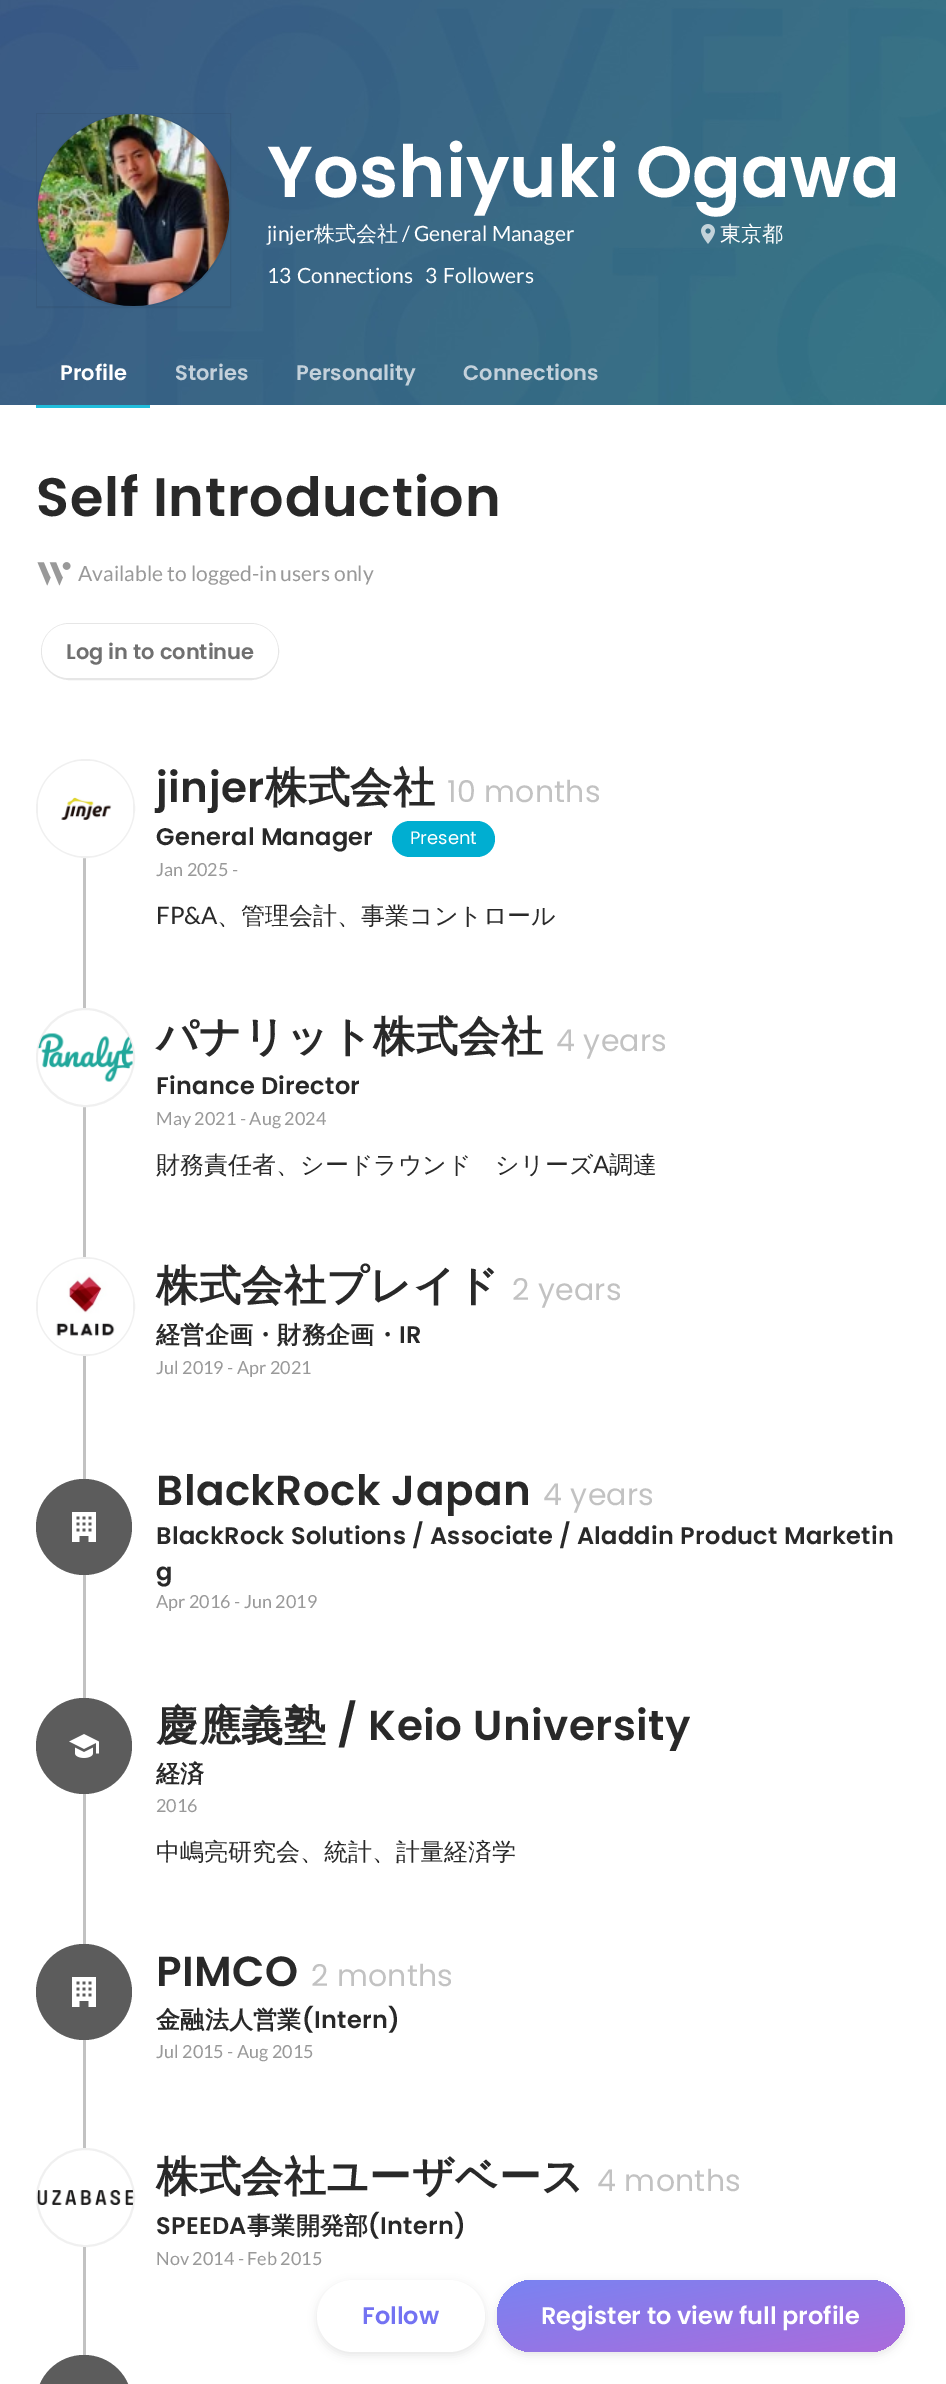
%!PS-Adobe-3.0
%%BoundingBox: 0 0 946 2384
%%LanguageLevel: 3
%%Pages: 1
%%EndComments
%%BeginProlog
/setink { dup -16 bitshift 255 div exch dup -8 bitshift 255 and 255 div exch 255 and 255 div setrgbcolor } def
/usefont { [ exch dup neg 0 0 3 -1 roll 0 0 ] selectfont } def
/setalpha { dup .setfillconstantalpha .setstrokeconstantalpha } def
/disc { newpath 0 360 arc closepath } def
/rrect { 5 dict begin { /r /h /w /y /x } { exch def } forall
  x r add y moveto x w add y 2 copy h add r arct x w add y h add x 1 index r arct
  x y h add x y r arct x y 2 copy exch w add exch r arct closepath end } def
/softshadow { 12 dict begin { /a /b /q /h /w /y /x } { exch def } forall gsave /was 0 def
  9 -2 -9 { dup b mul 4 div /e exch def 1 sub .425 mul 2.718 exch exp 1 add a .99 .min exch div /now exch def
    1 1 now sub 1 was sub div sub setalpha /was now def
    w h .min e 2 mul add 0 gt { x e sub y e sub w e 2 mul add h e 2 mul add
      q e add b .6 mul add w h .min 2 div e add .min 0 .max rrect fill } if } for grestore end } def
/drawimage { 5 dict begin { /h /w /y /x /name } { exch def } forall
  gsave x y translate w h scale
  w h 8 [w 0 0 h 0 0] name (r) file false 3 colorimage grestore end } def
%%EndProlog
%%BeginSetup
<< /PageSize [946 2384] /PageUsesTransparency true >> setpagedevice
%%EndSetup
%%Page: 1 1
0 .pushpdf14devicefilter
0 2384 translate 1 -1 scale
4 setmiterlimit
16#FFFFFF setink
0 0 946 2384 rectfill
(img1.raw) 0 0 946 405 drawimage
0.06 setalpha
16#000000 setink
2 setlinewidth
37 114 193 193 rectstroke
1 setalpha
(img2.raw) 37 114 193 192 drawimage
/Poppins-SemiBold 72 usefont
16#FFFFFF setink
267 197 moveto (Yoshiyuki Ogawa) show
/Lato-Regular 21 usefont
267 241 moveto (jinjer) show
/WenQuanYiZenHei-Medium 21 usefont
314 241 moveto (株式会社) show
/Lato-Regular 21 usefont
402 241 moveto (/ General Manager) show
(img3.raw) 701 224 14 20 drawimage
/WenQuanYiZenHei-Medium 21 usefont
720 241 moveto (東京都) show
/Lato-Regular 21 usefont
[
    [(13) 267 283]
    [(Connections) 297 283]
    [(3) 425 283]
    [(Followers) 443 283]
] { aload pop moveto show } forall
16#21BDDB setink
36 405 114 3 rectfill
/Poppins-SemiBold 21 usefont
16#FFFFFF setink
60 380 moveto (Profile) show
16#C4D1DB setink
[
    [(Stories) 175 380]
    [(Personality) 296 380]
    [(Connections) 463 380]
] { aload pop moveto show } forall
16#000000 setink
317 2283 168 72 36 4.5 0.1 softshadow
16#FFFFFF setink
317 2280 168 72 36 rrect fill
/Poppins-SemiBold 24 usefont
16#7372F2 setink
362 2324 moveto (Follow) show
16#000000 setink
497 2283 408 72 36 4.5 0.1 softshadow
gsave 497 2280 408 72 36 rrect clip newpath
<< /ShadingType 2 /ColorSpace /DeviceRGB /Coords [688 2246 713 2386] /Extend [true true] /Function << /FunctionType 2 /Domain [0 1] /C0 [0.475 0.514 0.949] /C1 [0.671 0.42 0.859] /N 1 >> >> shfill grestore
16#FFFFFF setink
541 2324 moveto (Register to view full profile) show
/Poppins-SemiBold 54 usefont
16#292929 setink
36 516 moveto 0.8 0 (Self Introduction) ashow
(img4.raw) 37 562 34 24 drawimage
/Lato-Regular 21 usefont
16#999999 setink
78 581 moveto (Available to logged-in users only) show
16#E6E6E6 setink
42 624 236 55 27.5 rrect stroke
16#FFFFFF setink
42 624 236 54 27 rrect fill
/Poppins-SemiBold 21 usefont
16#707070 setink
66 659 moveto (Log in to continue) show
16#C2C2C2 setink
83 858 3 150 rectfill
16#F0F0F0 setink
85.5 808.5 48.5 disc stroke
(img5.raw) 38 761 95 95 drawimage
/Poppins-SemiBold 42 usefont
16#292929 setink
156 802 moveto 0.5 0 (jinjer) ashow
/WenQuanYiZenHei-Bold 42 usefont
265 802 moveto 0.5 0 (株式会社) ashow
/Poppins-Regular 30 usefont
16#C2C2C2 setink
447 802 moveto 0.25 0 (10 months) ashow
/Poppins-SemiBold 24 usefont
16#292929 setink
156 845 moveto 0.3 0 (General Manager) ashow
16#00AED1 setink
392 821 103 36 18 rrect fill
/Poppins-Regular 18 usefont
16#FFFFFF setink
410 844 moveto (Present) show
/Lato-Regular 18 usefont
16#999999 setink
156 876 moveto (Jan 2025 -) show
/Lato-Regular 24 usefont
16#292929 setink
156 924 moveto (FP&A) show
/WenQuanYiZenHei-Medium 24 usefont
217 924 moveto (、管理会計、事業コントロール) show
16#C2C2C2 setink
83 1107 3 150 rectfill
16#F0F0F0 setink
85.5 1057.5 48.5 disc stroke
(img6.raw) 38 1033 96 49 drawimage
/WenQuanYiZenHei-Bold 42 usefont
16#292929 setink
156 1051 moveto 0.5 0 (パナリット株式会社) ashow
/Poppins-Regular 30 usefont
16#C2C2C2 setink
556 1051 moveto 0.25 0 (4 years) ashow
/Poppins-SemiBold 24 usefont
16#292929 setink
156 1094 moveto 0.3 0 (Finance Director) ashow
/Lato-Regular 18 usefont
16#999999 setink
156 1125 moveto (May 2021 - Aug 2024) show
/WenQuanYiZenHei-Medium 24 usefont
16#292929 setink
156 1173 moveto (財務責任者、シードラウンド　シリーズ) show
/Lato-Regular 24 usefont
593 1173 moveto (A) show
/WenQuanYiZenHei-Medium 24 usefont
609 1173 moveto (調達) show
16#F0F0F0 setink
85.5 1306.5 48.5 disc stroke
(img7.raw) 38 1259 95 95 drawimage
/WenQuanYiZenHei-Bold 42 usefont
16#292929 setink
156 1300 moveto 0.5 0 (株式会社プレイド) ashow
/Poppins-Regular 30 usefont
16#C2C2C2 setink
512 1300 moveto 0.25 0 (2 years) ashow
/WenQuanYiZenHei-Bold 24 usefont
16#292929 setink
156 1343 moveto 0.3 0 (経営企画・財務企画・) ashow
/Poppins-SemiBold 24 usefont
399 1343 moveto 0.3 0 (IR) ashow
/Lato-Regular 18 usefont
16#999999 setink
156 1374 moveto (Jul 2019 - Apr 2021) show
16#C2C2C2 setink
83 1356 3 792 rectfill
16#5C5C5C setink
84 1527 48 disc fill
(img8.raw) 72 1512 24 30 drawimage
/Poppins-SemiBold 42 usefont
16#292929 setink
156 1505 moveto 0.5 0 (BlackRock Japan) ashow
/Poppins-Regular 30 usefont
16#C2C2C2 setink
543 1505 moveto 0.25 0 (4 years) ashow
/Poppins-SemiBold 24 usefont
16#292929 setink
156 1544 moveto 0.3 0 (BlackRock Solutions / Associate / Aladdin Product Marketin) ashow
156 1580 moveto 0.3 0 (g) ashow
/Lato-Regular 18 usefont
16#999999 setink
156 1608 moveto (Apr 2016 - Jun 2019) show
16#5C5C5C setink
84 1746 48 disc fill
(img9.raw) 69 1734 30 24 drawimage
/WenQuanYiZenHei-Bold 42 usefont
16#292929 setink
156 1740 moveto 0.5 0 (慶應義塾) ashow
/Poppins-SemiBold 42 usefont
337 1740 moveto 0.5 0 (/ Keio University) ashow
/WenQuanYiZenHei-Bold 24 usefont
156 1782 moveto 0.3 0 (経済) ashow
/Lato-Regular 18 usefont
16#999999 setink
156 1812 moveto (2016) show
/WenQuanYiZenHei-Medium 24 usefont
16#292929 setink
156 1860 moveto (中嶋亮研究会、統計、計量経済学) show
16#5C5C5C setink
84 1992 48 disc fill
(img8.raw) 72 1977 24 30 drawimage
/Poppins-SemiBold 42 usefont
16#292929 setink
156 1986 moveto 0.5 0 (PIMCO) ashow
/Poppins-Regular 30 usefont
16#C2C2C2 setink
311 1986 moveto 0.25 0 (2 months) ashow
/WenQuanYiZenHei-Bold 24 usefont
16#292929 setink
156 2028 moveto 0.3 0 (金融法人営業) ashow
/Poppins-SemiBold 24 usefont
302 2028 moveto 0.3 0 (\(Intern\)) ashow
/Lato-Regular 18 usefont
16#999999 setink
156 2058 moveto (Jul 2015 - Aug 2015) show
16#F0F0F0 setink
85.5 2197.5 48.5 disc stroke
(img10.raw) 37 2190 97 15 drawimage
/WenQuanYiZenHei-Bold 42 usefont
16#292929 setink
156 2191 moveto 0.5 0 (株式会社ユーザベース) ashow
/Poppins-Regular 30 usefont
16#C2C2C2 setink
597 2191 moveto 0.25 0 (4 months) ashow
/Poppins-SemiBold 24 usefont
16#292929 setink
156 2234 moveto 0.3 0 (SPEEDA) ashow
/WenQuanYiZenHei-Bold 24 usefont
247 2234 moveto 0.3 0 (事業開発部) ashow
/Poppins-SemiBold 24 usefont
368 2234 moveto 0.3 0 (\(Intern\)) ashow
/Lato-Regular 18 usefont
16#999999 setink
156 2265 moveto (Nov 2014 - Feb 2015) show
16#C2C2C2 setink
83 2247 3 108 rectfill
16#5C5C5C setink
36 2355 96 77 48 rrect fill
.poppdf14devicefilter showpage
%%EOF
